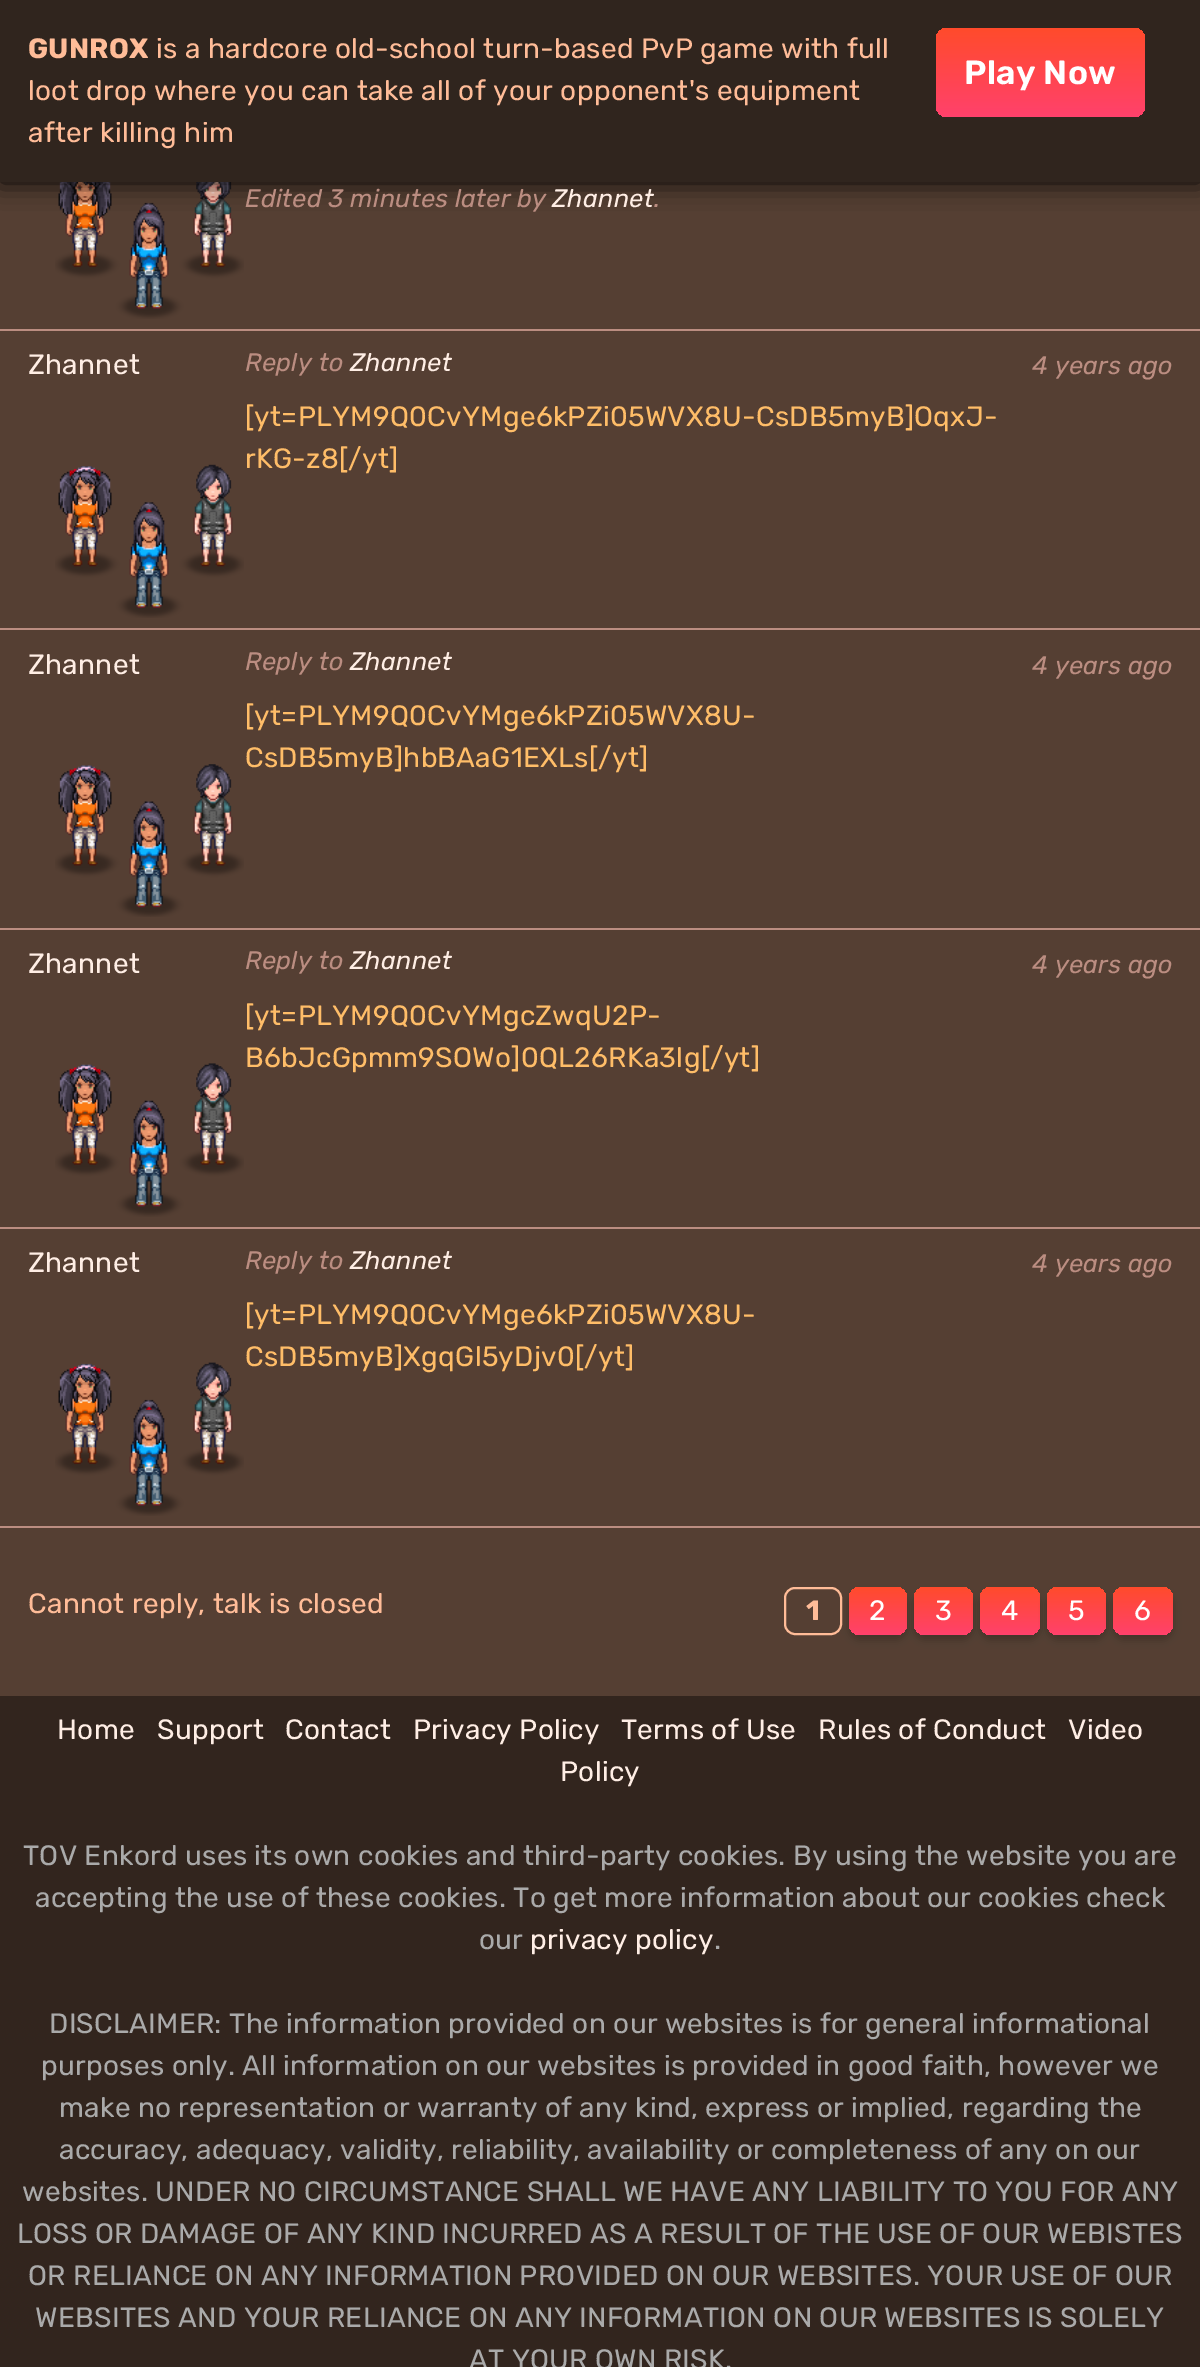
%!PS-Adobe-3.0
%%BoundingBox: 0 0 1200 2367
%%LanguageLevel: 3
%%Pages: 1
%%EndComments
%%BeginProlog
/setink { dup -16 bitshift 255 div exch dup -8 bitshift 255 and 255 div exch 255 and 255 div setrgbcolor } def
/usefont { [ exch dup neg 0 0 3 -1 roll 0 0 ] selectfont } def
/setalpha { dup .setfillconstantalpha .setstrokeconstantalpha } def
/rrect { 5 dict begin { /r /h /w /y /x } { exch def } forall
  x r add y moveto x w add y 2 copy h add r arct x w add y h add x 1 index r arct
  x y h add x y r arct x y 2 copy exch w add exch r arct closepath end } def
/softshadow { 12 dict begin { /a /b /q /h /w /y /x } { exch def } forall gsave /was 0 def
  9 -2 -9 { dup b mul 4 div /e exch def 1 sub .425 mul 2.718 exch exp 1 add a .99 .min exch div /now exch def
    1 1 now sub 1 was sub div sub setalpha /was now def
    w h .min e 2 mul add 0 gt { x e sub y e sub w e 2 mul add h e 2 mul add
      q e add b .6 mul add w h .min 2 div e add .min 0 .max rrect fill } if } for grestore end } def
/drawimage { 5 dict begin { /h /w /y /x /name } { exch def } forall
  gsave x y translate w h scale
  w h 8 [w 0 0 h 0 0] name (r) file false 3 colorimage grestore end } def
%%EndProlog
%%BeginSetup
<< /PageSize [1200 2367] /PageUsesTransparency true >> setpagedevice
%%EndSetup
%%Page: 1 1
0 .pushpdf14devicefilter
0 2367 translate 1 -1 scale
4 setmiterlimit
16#FFFFFF setink
0 0 1200 2367 rectfill
(img1.raw) 0 1696 1200 671 drawimage
16#553F33 setink
0 182 1200 1514 rectfill
(img2.raw) 55 182 189 137 drawimage
16#000000 setink
0 0 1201 182 0 13 1 softshadow
16#30251E setink
0 0 1200 182 rectfill
/Rubik-Bold 28 usefont
16#FFBC98 setink
28 58 moveto 0.28 0 (GUNROX) ashow
/Rubik-Regular 28 usefont
156 58 moveto 0.28 0 (is a hardcore old-school turn-based PvP game with full) ashow
28 100 moveto 0.28 0 (loot drop where you can take all of your opponent's equipment) ashow
gsave 936 28 209 89 11 rrect clip newpath
<< /ShadingType 2 /ColorSpace /DeviceRGB /Coords [1040 28 1040 117] /Extend [true true] /Function << /FunctionType 2 /Domain [0 1] /C0 [1 0.294 0.169] /C1 [1 0.255 0.424] /N 1 >> >> shfill grestore
/Rubik-SemiBold 33.5 usefont
16#FFFFFF setink
964 84 moveto 0.28 0 (Play Now) ashow
/Rubik-Regular 28 usefont
16#FFBC98 setink
28 142 moveto 0.28 0 (after killing him) ashow
/Rubik-Italic 25.25 usefont
16#BB8D81 setink
245 207 moveto 0.28 0 (Edited 3 minutes later by) ashow
16#FFEEE5 setink
552 207 moveto 0.28 0 (Zhannet) ashow
16#BB8D81 setink
654 207 moveto 0.28 0 (.) ashow
/Rubik-Regular 28 usefont
16#FFEEE5 setink
28 374 moveto 0.28 0 (Zhannet) ashow
(img3.raw) 55 464 189 154 drawimage
16#BB8D81 setink
0 329 1200 2 rectfill
/Rubik-Italic 25.25 usefont
245 371 moveto 0.28 0 (Reply to) ashow
16#FFEEE5 setink
350 371 moveto 0.28 0 (Zhannet) ashow
/Rubik-Regular 28 usefont
16#FFBD68 setink
245 426 moveto 0.28 0 ([yt=PLYM9Q0CvYMge6kPZi05WVX8U-CsDB5myB]OqxJ-) ashow
245 468 moveto 0.28 0 (rKG-z8[/yt]) ashow
/Rubik-Italic 25.25 usefont
16#BB8D81 setink
1032 374 moveto 0.28 0 (4 years ago) ashow
/Rubik-Regular 28 usefont
16#FFEEE5 setink
28 674 moveto 0.28 0 (Zhannet) ashow
(img4.raw) 55 764 189 153 drawimage
16#BB8D81 setink
0 628 1200 2 rectfill
/Rubik-Italic 25.25 usefont
245 670 moveto 0.28 0 (Reply to) ashow
16#FFEEE5 setink
350 670 moveto 0.28 0 (Zhannet) ashow
/Rubik-Regular 28 usefont
16#FFBD68 setink
245 725 moveto 0.28 0 ([yt=PLYM9Q0CvYMge6kPZi05WVX8U-) ashow
245 767 moveto 0.28 0 (CsDB5myB]hbBAaG1EXLs[/yt]) ashow
/Rubik-Italic 25.25 usefont
16#BB8D81 setink
1032 674 moveto 0.28 0 (4 years ago) ashow
/Rubik-Regular 28 usefont
16#FFEEE5 setink
28 973 moveto 0.28 0 (Zhannet) ashow
(img5.raw) 55 1063 189 154 drawimage
16#BB8D81 setink
0 928 1200 2 rectfill
/Rubik-Italic 25.25 usefont
245 969 moveto 0.28 0 (Reply to) ashow
16#FFEEE5 setink
350 969 moveto 0.28 0 (Zhannet) ashow
/Rubik-Regular 28 usefont
16#FFBD68 setink
245 1025 moveto 0.28 0 ([yt=PLYM9Q0CvYMgcZwqU2P-) ashow
245 1067 moveto 0.28 0 (B6bJcGpmm9SOWo]0QL26RKa3lg[/yt]) ashow
/Rubik-Italic 25.25 usefont
16#BB8D81 setink
1032 973 moveto 0.28 0 (4 years ago) ashow
/Rubik-Regular 28 usefont
16#FFEEE5 setink
28 1272 moveto 0.28 0 (Zhannet) ashow
(img6.raw) 55 1362 189 154 drawimage
16#BB8D81 setink
0 1227 1200 2 rectfill
/Rubik-Italic 25.25 usefont
245 1269 moveto 0.28 0 (Reply to) ashow
16#FFEEE5 setink
350 1269 moveto 0.28 0 (Zhannet) ashow
/Rubik-Regular 28 usefont
16#FFBD68 setink
245 1324 moveto 0.28 0 ([yt=PLYM9Q0CvYMge6kPZi05WVX8U-) ashow
245 1366 moveto 0.28 0 (CsDB5myB]XgqGl5yDjv0[/yt]) ashow
/Rubik-Italic 25.25 usefont
16#BB8D81 setink
1032 1272 moveto 0.28 0 (4 years ago) ashow
0 1526 1200 2 rectfill
/Rubik-Regular 28 usefont
16#FFBC98 setink
28 1613 moveto 0.28 0 (Cannot reply, talk is closed) ashow
2 setlinewidth
785 1588 56 46 10 rrect stroke
/Rubik-Bold 28 usefont
806 1620 moveto 0.28 0 (1) ashow
16#000000 setink
849 1593 58 47 11 4 0.2 softshadow
gsave 849 1587 58 48 11 rrect clip newpath
<< /ShadingType 2 /ColorSpace /DeviceRGB /Coords [878 1587 878 1635] /Extend [true true] /Function << /FunctionType 2 /Domain [0 1] /C0 [1 0.294 0.169] /C1 [1 0.255 0.424] /N 1 >> >> shfill grestore
/Rubik-Regular 28 usefont
16#FFFFFF setink
869 1620 moveto 0.28 0 (2) ashow
16#000000 setink
914 1593 59 47 11 4 0.2 softshadow
gsave 914 1587 59 48 11 rrect clip newpath
<< /ShadingType 2 /ColorSpace /DeviceRGB /Coords [943 1587 943 1635] /Extend [true true] /Function << /FunctionType 2 /Domain [0 1] /C0 [1 0.294 0.169] /C1 [1 0.255 0.424] /N 1 >> >> shfill grestore
16#FFFFFF setink
935 1620 moveto 0.28 0 (3) ashow
16#000000 setink
980 1593 60 47 11 4 0.2 softshadow
gsave 980 1587 60 48 11 rrect clip newpath
<< /ShadingType 2 /ColorSpace /DeviceRGB /Coords [1010 1587 1010 1635] /Extend [true true] /Function << /FunctionType 2 /Domain [0 1] /C0 [1 0.294 0.169] /C1 [1 0.255 0.424] /N 1 >> >> shfill grestore
16#FFFFFF setink
1001 1620 moveto 0.28 0 (4) ashow
16#000000 setink
1047 1593 59 47 11 4 0.2 softshadow
gsave 1047 1587 59 48 11 rrect clip newpath
<< /ShadingType 2 /ColorSpace /DeviceRGB /Coords [1076 1587 1076 1635] /Extend [true true] /Function << /FunctionType 2 /Domain [0 1] /C0 [1 0.294 0.169] /C1 [1 0.255 0.424] /N 1 >> >> shfill grestore
16#FFFFFF setink
1068 1620 moveto 0.28 0 (5) ashow
16#000000 setink
1113 1593 60 47 11 4 0.2 softshadow
gsave 1113 1587 60 48 11 rrect clip newpath
<< /ShadingType 2 /ColorSpace /DeviceRGB /Coords [1143 1587 1143 1635] /Extend [true true] /Function << /FunctionType 2 /Domain [0 1] /C0 [1 0.294 0.169] /C1 [1 0.255 0.424] /N 1 >> >> shfill grestore
16#FFFFFF setink
1134 1620 moveto 0.28 0 (6) ashow
16#FFEEE5 setink
57 1739 moveto 0.28 0 (Home) ashow
157 1739 moveto 0.28 0 (Support) ashow
285 1739 moveto 0.28 0 (Contact) ashow
413 1739 moveto 0.28 0 (Privacy Policy) ashow
621 1739 moveto 0.28 0 (Terms of Use) ashow
818 1739 moveto 0.28 0 (Rules of Conduct) ashow
1068 1739 moveto 0.28 0 (Video) ashow
560 1781 moveto 0.28 0 (Policy) ashow
16#AAAAAA setink
23 1865 moveto 0.28 0 (TOV Enkord uses its own cookies and third-party cookies. By using the website you are) ashow
35 1907 moveto 0.28 0 (accepting the use of these cookies. To get more information about our cookies check) ashow
479 1949 moveto 0.28 0 (our) ashow
16#FFEEE5 setink
530 1949 moveto 0.28 0 (privacy policy) ashow
16#AAAAAA setink
714 1949 moveto 0.28 0 (.) ashow
49 2033 moveto 0.28 0 (DISCLAIMER: The information provided on our websites is for general informational) ashow
41 2075 moveto 0.28 0 (purposes only. All information on our websites is provided in good faith, however we) ashow
59 2117 moveto 0.28 0 (make no representation or warranty of any kind, express or implied, regarding the) ashow
59 2159 moveto 0.28 0 (accuracy, adequacy, validity, reliability, availability or completeness of any on our) ashow
22 2201 moveto 0.28 0 (websites. UNDER NO CIRCUMSTANCE SHALL WE HAVE ANY LIABILITY TO YOU FOR ANY) ashow
17 2243 moveto 0.28 0 (LOSS OR DAMAGE OF ANY KIND INCURRED AS A RESULT OF THE USE OF OUR WEBISTES) ashow
28 2285 moveto 0.28 0 (OR RELIANCE ON ANY INFORMATION PROVIDED ON OUR WEBSITES. YOUR USE OF OUR) ashow
35 2327 moveto 0.28 0 (WEBSITES AND YOUR RELIANCE ON ANY INFORMATION ON OUR WEBSITES IS SOLELY) ashow
469 2369 moveto 0.28 0 (AT YOUR OWN RISK.) ashow
.poppdf14devicefilter showpage
%%EOF
